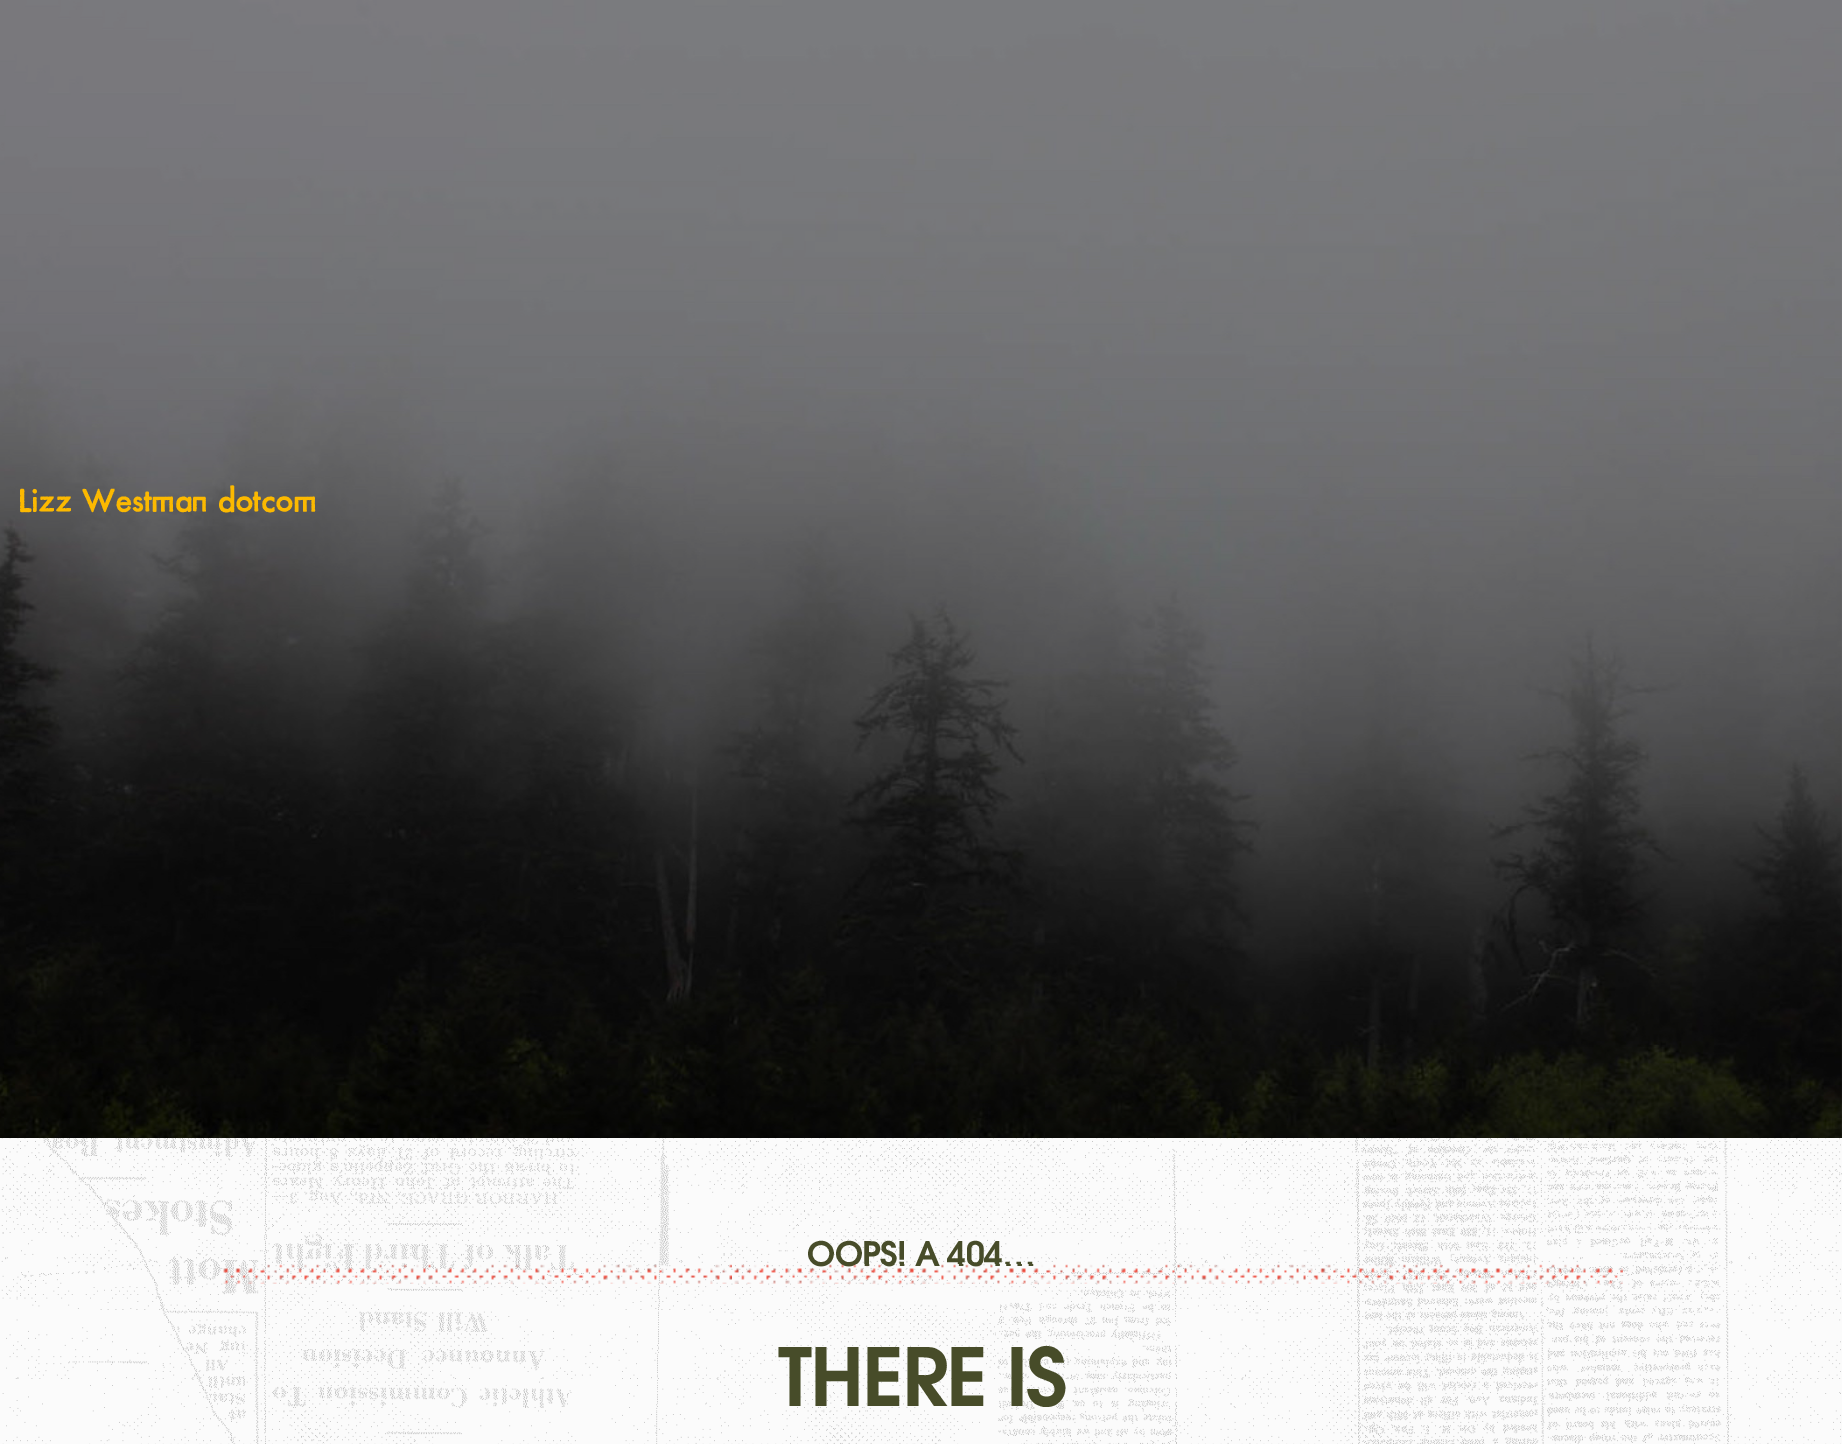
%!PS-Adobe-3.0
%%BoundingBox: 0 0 1842 1444
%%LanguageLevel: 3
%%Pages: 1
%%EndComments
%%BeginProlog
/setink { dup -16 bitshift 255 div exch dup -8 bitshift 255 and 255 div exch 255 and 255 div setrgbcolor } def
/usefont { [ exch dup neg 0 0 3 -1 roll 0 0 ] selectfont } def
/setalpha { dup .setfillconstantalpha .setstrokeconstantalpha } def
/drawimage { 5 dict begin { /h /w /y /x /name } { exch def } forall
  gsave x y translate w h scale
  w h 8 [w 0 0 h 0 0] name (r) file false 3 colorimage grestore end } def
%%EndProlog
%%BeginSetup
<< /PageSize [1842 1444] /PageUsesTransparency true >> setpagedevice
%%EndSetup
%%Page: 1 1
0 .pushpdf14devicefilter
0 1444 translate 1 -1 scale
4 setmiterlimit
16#FFFFFF setink
0 0 1842 1444 rectfill
(img1.raw) 0 0 1842 1444 drawimage
(img2.raw) 0 0 1842 1138 drawimage
0.3 setalpha
16#000000 setink
0 0 1842 1138 rectfill
/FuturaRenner-Bold 33.75 usefont
1 setalpha
16#FCB900 setink
18 512 moveto (Lizz Westman dotcom) show
/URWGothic-Bold 33.75 usefont
16#474C29 setink
807 1266 moveto -0.75 0 (OOPS! A 404…) ashow
(img3.raw) 223 1264 1400 20 drawimage
/URWGothic-Bold 80 usefont
778 1406 moveto -2 0 (THERE IS) ashow
.poppdf14devicefilter showpage
%%EOF
